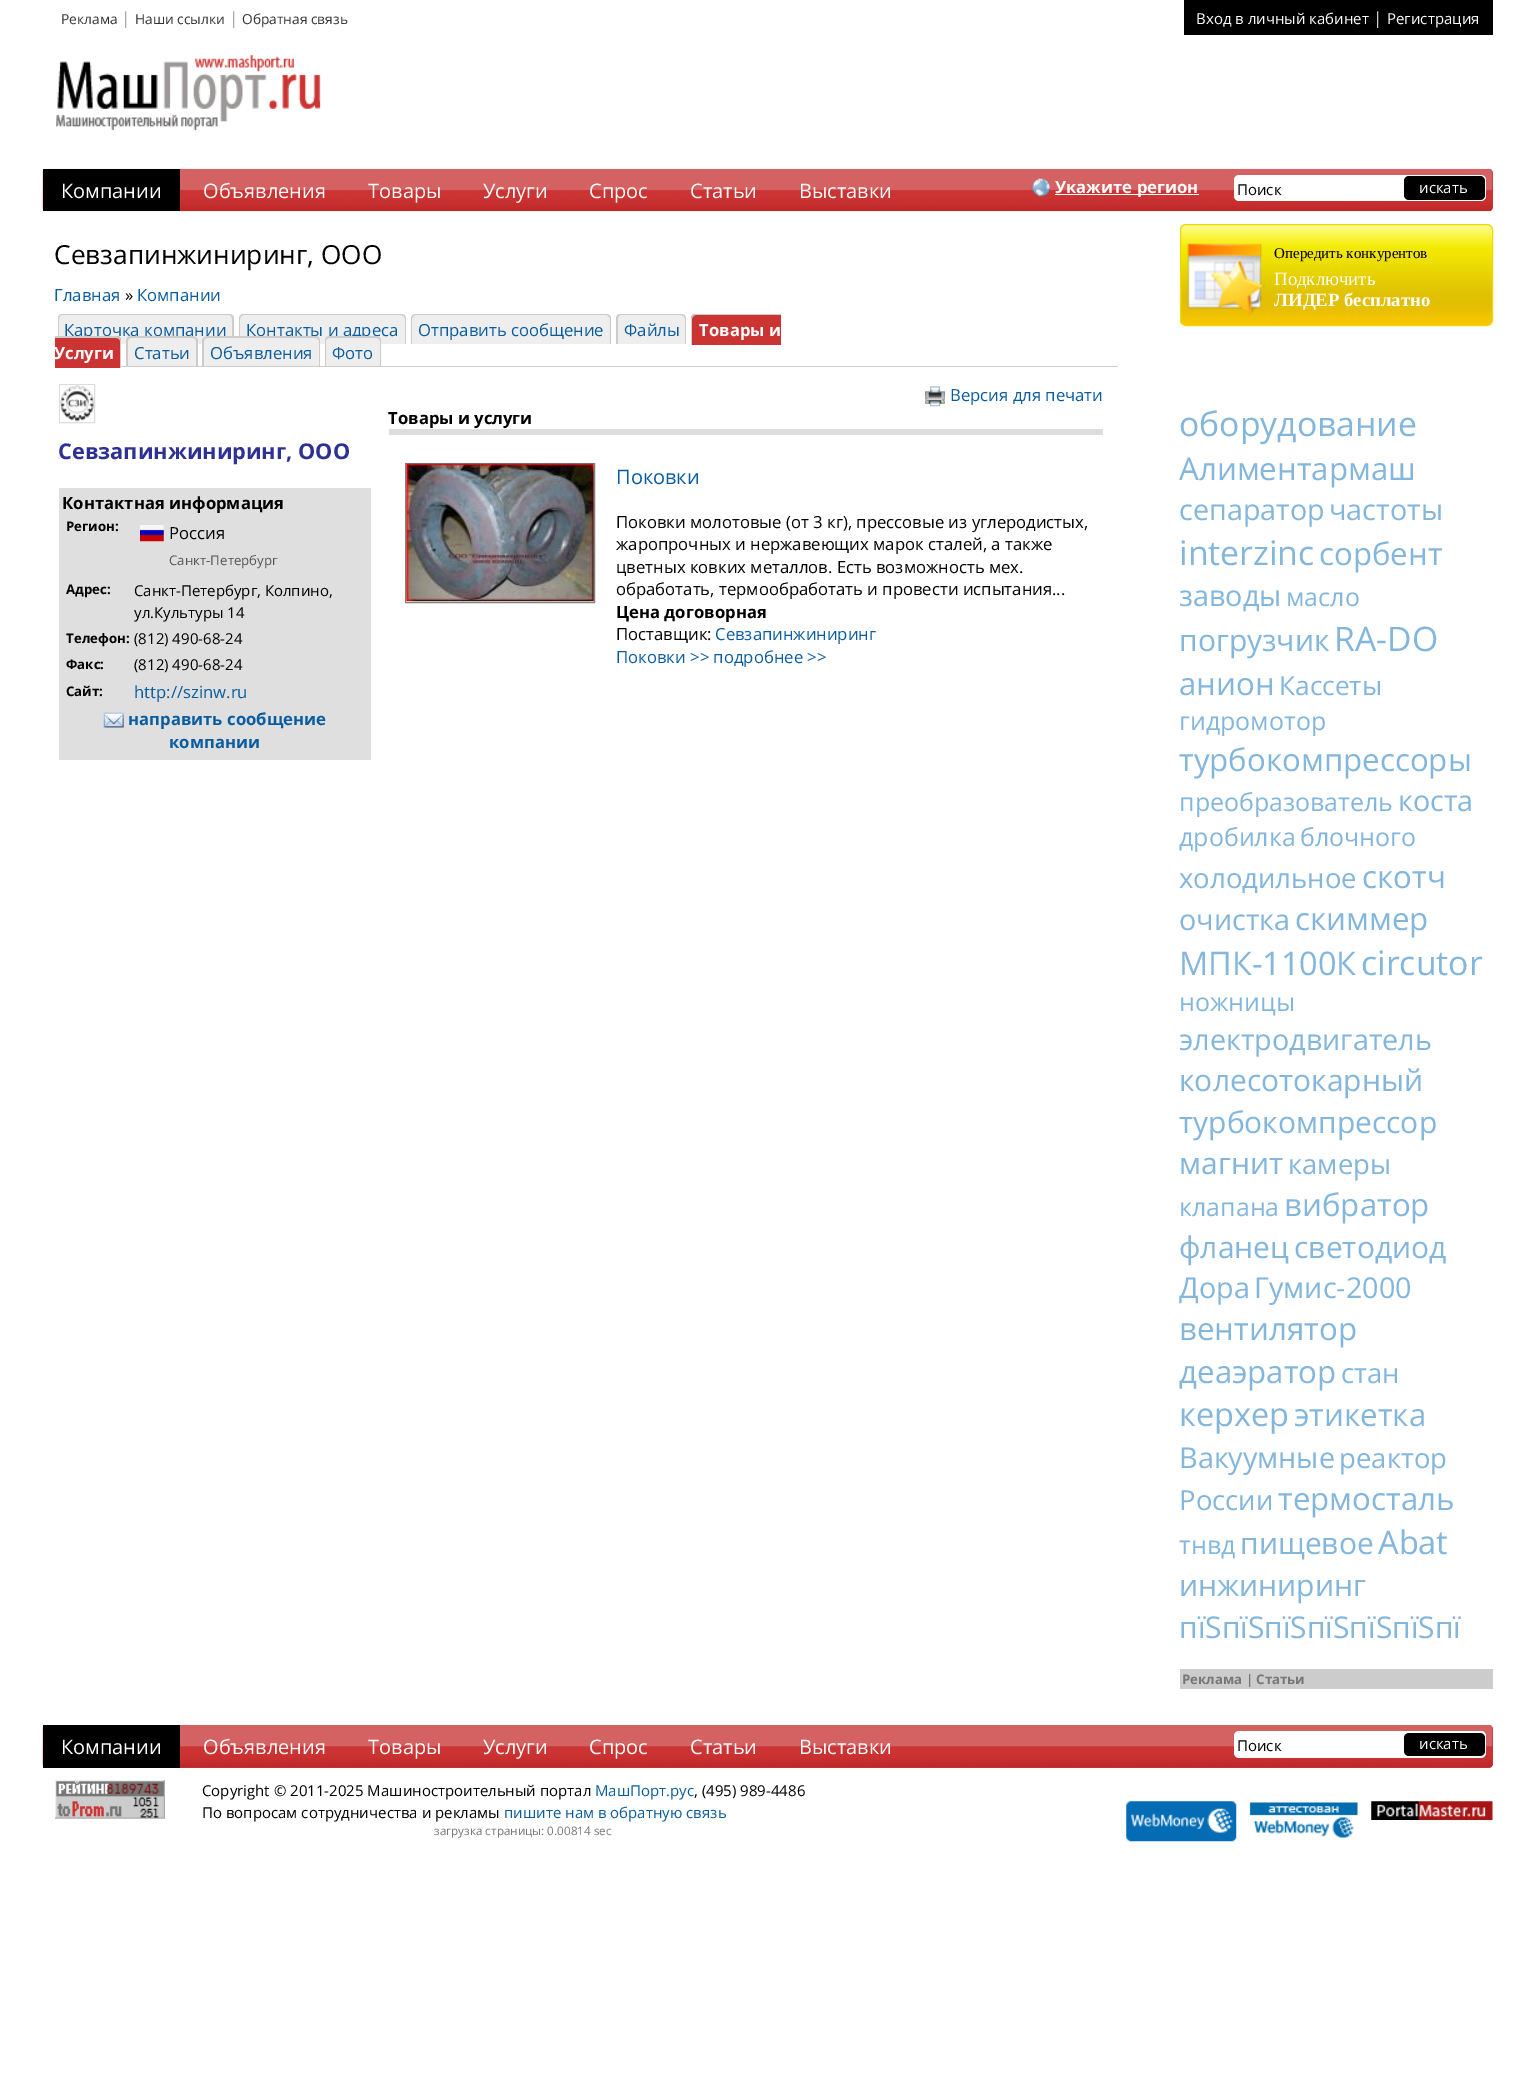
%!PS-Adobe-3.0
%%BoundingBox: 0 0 1533 2089
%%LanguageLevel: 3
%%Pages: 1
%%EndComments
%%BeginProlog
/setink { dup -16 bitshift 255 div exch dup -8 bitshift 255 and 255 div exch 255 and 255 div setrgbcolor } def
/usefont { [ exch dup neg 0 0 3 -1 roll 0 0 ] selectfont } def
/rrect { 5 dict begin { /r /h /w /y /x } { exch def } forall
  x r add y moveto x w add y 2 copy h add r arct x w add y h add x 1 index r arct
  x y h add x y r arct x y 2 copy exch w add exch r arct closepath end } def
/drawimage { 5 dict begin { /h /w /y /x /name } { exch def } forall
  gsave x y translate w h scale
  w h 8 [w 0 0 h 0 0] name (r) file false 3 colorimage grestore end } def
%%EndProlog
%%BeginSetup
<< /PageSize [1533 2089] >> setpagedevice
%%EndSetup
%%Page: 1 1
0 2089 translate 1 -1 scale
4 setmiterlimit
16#FFFFFF setink
0 0 1533 2089 rectfill
/OpenSans-Regular 13.75 usefont
16#333333 setink
61 24 moveto (Реклама) show
/OpenSans-Regular 16.7 usefont
16#AAAAAA setink
121 24 moveto (|) show
/OpenSans-Regular 13.75 usefont
16#333333 setink
135 24 moveto (Наши ссылки) show
/OpenSans-Regular 16.7 usefont
16#AAAAAA setink
229 24 moveto (|) show
/OpenSans-Regular 13.75 usefont
16#333333 setink
242 24 moveto (Обратная связь) show
16#000000 setink
1184 0 309 35 rectfill
/OpenSans-Regular 15 usefont
16#FFFFFF setink
1196 24 moveto (Вход в личный кабинет) show
/OpenSans-Regular 16.7 usefont
16#CCCCCC setink
1373 24 moveto (|) show
/OpenSans-Regular 15 usefont
16#FFFFFF setink
1387 24 moveto (Регистрация) show
(img1.raw) 56 54 265 77 drawimage
16#CC3333 setink
43 169 1450 42 4 rrect fill
(img2.raw) 42 168 1451 44 drawimage
16#000000 setink
43 169 137 42 rectfill
/OpenSans-Regular 20 usefont
16#FFFFFF setink
[
    [(Компании) 61 198]
    [(Объявления) 203 198]
    [(Товары) 368 198]
    [(Услуги) 483 198]
    [(Спрос) 589 198]
    [(Статьи) 690 198]
    [(Выставки) 799 198]
] { aload pop moveto show } forall
(img3.raw) 1031 177 20 20 drawimage
1055 194 144 1 rectfill
/OpenSans-Bold 16.7 usefont
1055 193 moveto (Укажите регион) show
1234 175 252 26 5 rrect fill
/OpenSans-Regular 15 usefont
16#000000 setink
1237 195 moveto (Поиск) show
1404 176 81 24 5 rrect fill
16#FFFFFF setink
1419 193 moveto (искать) show
/OpenSans-Regular 26.25 usefont
16#000000 setink
54 264 moveto (Севзапинжиниринг, ООО) show
/OpenSans-Regular 16.7 usefont
16#095C9F setink
54 301 moveto (Главная) show
16#000000 setink
125 301 moveto (») show
16#095C9F setink
137 301 moveto (Компании) show
16#CCCCCC setink
121 366 997 1 rectfill
16#EEEEEE setink
63 314 moveto 229 314 lineto 232 314 234 316 234 319 curveto 234 344 lineto 58 344 lineto 58 319 lineto 58 316 60 314 63 314 curveto closepath fill
16#CCCCCC setink
62 314 moveto 229 314 lineto 232 314 234 316 234 319 curveto 234 344 lineto 58 344 lineto 58 319 lineto 58 316 60 314 62 314 curveto closepath 62 315 moveto 229 315 lineto 231 315 232 317 232 319 curveto 232 344 lineto 59 344 lineto 59 319 lineto 59 317 60 315 62 315 curveto closepath eofill
16#095C9F setink
64 336 moveto (Карточка компании) show
16#EEEEEE setink
244 314 moveto 401 314 lineto 404 314 406 316 406 319 curveto 406 344 lineto 239 344 lineto 239 319 lineto 239 316 241 314 244 314 curveto closepath fill
16#CCCCCC setink
244 314 moveto 401 314 lineto 404 314 406 316 406 319 curveto 406 344 lineto 239 344 lineto 239 319 lineto 239 316 241 314 244 314 curveto closepath 244 315 moveto 401 315 lineto 403 315 405 317 405 319 curveto 405 344 lineto 240 344 lineto 240 319 lineto 240 317 242 315 244 315 curveto closepath eofill
16#095C9F setink
246 336 moveto (Контакты и адреса) show
16#EEEEEE setink
416 314 moveto 606 314 lineto 609 314 611 316 611 319 curveto 611 344 lineto 411 344 lineto 411 319 lineto 411 316 413 314 416 314 curveto closepath fill
16#CCCCCC setink
416 314 moveto 606 314 lineto 609 314 611 316 611 319 curveto 611 344 lineto 411 344 lineto 411 319 lineto 411 316 413 314 416 314 curveto closepath 416 315 moveto 606 315 lineto 608 315 610 317 610 319 curveto 610 344 lineto 412 344 lineto 412 319 lineto 412 317 414 315 416 315 curveto closepath eofill
16#095C9F setink
418 336 moveto (Отправить сообщение) show
16#EEEEEE setink
621 314 moveto 681 314 lineto 684 314 686 316 686 319 curveto 686 344 lineto 616 344 lineto 616 319 lineto 616 316 618 314 621 314 curveto closepath fill
16#CCCCCC setink
621 314 moveto 681 314 lineto 684 314 686 316 686 319 curveto 686 344 lineto 616 344 lineto 616 319 lineto 616 316 618 314 621 314 curveto closepath 621 315 moveto 681 315 lineto 683 315 685 317 685 319 curveto 685 344 lineto 618 344 lineto 618 319 lineto 618 317 619 315 621 315 curveto closepath eofill
16#095C9F setink
624 336 moveto (Файлы) show
16#CC3333 setink
696 314 moveto 781 314 lineto 781 345 lineto 691 345 lineto 691 319 lineto 691 316 693 314 696 314 curveto closepath fill
16#CCCCCC setink
696 314 moveto 781 314 lineto 781 345 lineto 691 345 lineto 691 319 lineto 691 316 693 314 696 314 curveto closepath 696 315 moveto 781 315 lineto 781 345 lineto 692 345 lineto 692 319 lineto 692 317 694 315 696 315 curveto closepath eofill
/OpenSans-Bold 16.7 usefont
16#FFFFFF setink
699 336 moveto (Товары и) show
16#CC3333 setink
55 336 moveto 116 336 lineto 119 336 121 338 121 341 curveto 121 368 lineto 55 368 lineto closepath fill
16#CCCCCC setink
55 336 moveto 116 336 lineto 119 336 121 338 121 341 curveto 121 368 lineto 55 368 lineto closepath 55 338 moveto 116 338 lineto 118 338 120 339 120 341 curveto 120 368 lineto 55 368 lineto closepath eofill
16#FFFFFF setink
54 359 moveto (Услуги) show
16#EEEEEE setink
131 336 moveto 193 336 lineto 196 336 198 338 198 341 curveto 198 366 lineto 126 366 lineto 126 341 lineto 126 338 128 336 131 336 curveto closepath fill
16#CCCCCC setink
131 336 moveto 192 336 lineto 195 336 198 338 198 341 curveto 198 366 lineto 126 366 lineto 126 341 lineto 126 338 128 336 131 336 curveto closepath 131 338 moveto 192 338 lineto 195 338 196 339 196 341 curveto 196 366 lineto 128 366 lineto 128 341 lineto 128 339 129 338 131 338 curveto closepath eofill
/OpenSans-Regular 16.7 usefont
16#095C9F setink
134 359 moveto (Статьи) show
16#EEEEEE setink
208 336 moveto 315 336 lineto 318 336 320 338 320 341 curveto 320 366 lineto 203 366 lineto 203 341 lineto 203 338 205 336 208 336 curveto closepath fill
16#CCCCCC setink
208 336 moveto 315 336 lineto 318 336 320 338 320 341 curveto 320 366 lineto 202 366 lineto 202 341 lineto 202 338 205 336 208 336 curveto closepath 208 338 moveto 315 338 lineto 317 338 319 339 319 341 curveto 319 366 lineto 204 366 lineto 204 341 lineto 204 339 205 338 208 338 curveto closepath eofill
16#095C9F setink
210 359 moveto (Объявления) show
16#EEEEEE setink
330 336 moveto 376 336 lineto 379 336 381 338 381 341 curveto 381 366 lineto 325 366 lineto 325 341 lineto 325 338 327 336 330 336 curveto closepath fill
16#CCCCCC setink
330 336 moveto 376 336 lineto 379 336 381 338 381 341 curveto 381 366 lineto 325 366 lineto 325 341 lineto 325 338 327 336 330 336 curveto closepath 330 338 moveto 376 338 lineto 378 338 380 339 380 341 curveto 380 366 lineto 326 366 lineto 326 341 lineto 326 339 328 338 330 338 curveto closepath eofill
16#095C9F setink
332 359 moveto (Фото) show
16#DDDDDD setink
59.5 384.5 35 38 rectstroke
(img4.raw) 60 385 34 37 drawimage
/OpenSans-Bold 21.7 usefont
16#2E3193 setink
58 459 moveto (Севзапинжиниринг, ООО) show
16#DFDFDF setink
59 488 312 272 rectfill
/OpenSans-Bold 16.7 usefont
16#000000 setink
62 509 moveto (Контактная информация) show
/OpenSans-Bold 13.25 usefont
66 531 moveto (Регион:) show
(img5.raw) 140 525 24 17 drawimage
/OpenSans-Regular 16.7 usefont
169 539 moveto (Россия) show
/OpenSans-Regular 13.25 usefont
16#555555 setink
169 565 moveto (Санкт-Петербург) show
/OpenSans-Bold 13.25 usefont
16#000000 setink
66 594 moveto (Адрес:) show
/OpenSans-Regular 15 usefont
134 596 moveto (Санкт-Петербург, Колпино,) show
134 618 moveto (ул.Культуры 14) show
/OpenSans-Bold 13.25 usefont
66 643 moveto (Телефон:) show
/OpenSans-Regular 15 usefont
134 644 moveto (\(812\) 490-68-24) show
/OpenSans-Bold 13.25 usefont
66 669 moveto (Факс:) show
/OpenSans-Regular 15 usefont
134 670 moveto (\(812\) 490-68-24) show
/OpenSans-Bold 13.25 usefont
66 696 moveto (Сайт:) show
/OpenSans-Regular 16.7 usefont
16#095C9F setink
134 698 moveto (http://szinw.ru) show
(img6.raw) 103 712 21 16 drawimage
/OpenSans-Bold 16.7 usefont
128 725 moveto (направить сообщение) show
169 748 moveto (компании) show
(img7.raw) 925 386 20 21 drawimage
/OpenSans-Regular 16.7 usefont
950 401 moveto (Версия для печати) show
16#DDDDDD setink
389 429 714 6 rectfill
/OpenSans-Bold 16.7 usefont
16#000000 setink
388 424 moveto (Товары и услуги) show
16#808080 setink
405.5 463.5 189 139 rectstroke
(img8.raw) 406 463 188 139 drawimage
/OpenSans-Regular 20 usefont
16#095C9F setink
616 484 moveto (Поковки) show
/OpenSans-Regular 16.7 usefont
16#000000 setink
[
    [(Поковки молотовые \(от 3 кг\), прессовые из углеродистых,) 616 528]
    [(жаропрочных и нержавеющих марок сталей, а также) 616 550]
    [(цветных ковких металлов. Есть возможность мех.) 616 573]
    [(обработать, термообработать и провести испытания...) 616 595]
] { aload pop moveto show } forall
/OpenSans-Bold 16.7 usefont
616 618 moveto (Цена договорная) show
/OpenSans-Regular 16.7 usefont
616 640 moveto (Поставщик:) show
16#095C9F setink
715 640 moveto (Севзапинжиниринг) show
616 663 moveto (Поковки >> подробнее >>) show
(img9.raw) 1180 223 313 102 drawimage
16#EEDA03 setink
1180.5 224.5 312 101 5.5 rrect stroke
(img10.raw) 1187 243 78 73 drawimage
/LiberationSerif-Regular 15 usefont
16#000000 setink
1274 258 moveto (Опередить конкурентов) show
/LiberationSerif-Regular 18.75 usefont
16#FFFFFF setink
1274 285 moveto (Подключить) show
/LiberationSerif-Bold 18.75 usefont
1274 306 moveto (ЛИДЕР бесплатно) show
/OpenSans-Regular 33.75 usefont
16#82B6DD setink
1179 436 moveto (оборудование) show
/OpenSans-Regular 31.25 usefont
1179 480 moveto (Алиментармаш) show
/OpenSans-Regular 28.75 usefont
1179 520 moveto (сепаратор) show
1329 520 moveto (частоты) show
/OpenSans-Regular 33.75 usefont
1179 565 moveto (interzinc) show
/OpenSans-Regular 31.25 usefont
1319 565 moveto (сорбент) show
/OpenSans-Regular 28.75 usefont
1179 606 moveto (заводы) show
/OpenSans-Regular 25 usefont
1286 606 moveto (масло) show
/OpenSans-Regular 30 usefont
1179 651 moveto (погрузчик) show
/OpenSans-Regular 33.75 usefont
1334 651 moveto (RA-DO) show
/OpenSans-Regular 31.25 usefont
1179 695 moveto (анион) show
/OpenSans-Regular 26.25 usefont
1279 695 moveto (Кассеты) show
/OpenSans-Regular 25 usefont
1179 730 moveto (гидромотор) show
/OpenSans-Regular 31.25 usefont
1179 771 moveto (турбокомпрессоры) show
/OpenSans-Regular 25 usefont
1179 811 moveto (преобразователь) show
/OpenSans-Regular 28.75 usefont
1398 811 moveto (коста) show
/OpenSans-Regular 25 usefont
1179 846 moveto (дробилка) show
1300 846 moveto (блочного) show
/OpenSans-Regular 27.5 usefont
1179 888 moveto (холодильное) show
/OpenSans-Regular 31.25 usefont
1362 888 moveto (скотч) show
/OpenSans-Regular 28.75 usefont
1179 930 moveto (очистка) show
/OpenSans-Regular 31.25 usefont
1295 930 moveto (скиммер) show
/OpenSans-Regular 32.5 usefont
1179 975 moveto (МПК-1100К) show
/OpenSans-Regular 33.75 usefont
1361 975 moveto (circutor) show
/OpenSans-Regular 25 usefont
1179 1011 moveto (ножницы) show
/OpenSans-Regular 28.75 usefont
1179 1050 moveto (электродвигатель) show
/OpenSans-Regular 30 usefont
[
    [(колесотокарный) 1179 1091]
    [(турбокомпрессор) 1179 1133]
    [(магнит) 1179 1174]
] { aload pop moveto show } forall
/OpenSans-Regular 27.5 usefont
1288 1174 moveto (камеры) show
/OpenSans-Regular 25 usefont
1179 1216 moveto (клапана) show
/OpenSans-Regular 31.25 usefont
1284 1216 moveto (вибратор) show
/OpenSans-Regular 30 usefont
1179 1258 moveto (фланец) show
1294 1258 moveto (светодиод) show
/OpenSans-Regular 28.75 usefont
1179 1298 moveto (Дора) show
1254 1298 moveto (Гумис-2000) show
/OpenSans-Regular 31.25 usefont
1179 1340 moveto (вентилятор) show
1179 1383 moveto (деаэратор) show
/OpenSans-Regular 27.5 usefont
1341 1383 moveto (стан) show
/OpenSans-Regular 32.5 usefont
1179 1426 moveto (керхер) show
/OpenSans-Regular 31.25 usefont
1294 1426 moveto (этикетка) show
/OpenSans-Regular 28.75 usefont
1179 1468 moveto (Вакуумные) show
/OpenSans-Regular 27.5 usefont
1339 1468 moveto (реактор) show
1179 1510 moveto (России) show
/OpenSans-Regular 31.25 usefont
1278 1510 moveto (термосталь) show
/OpenSans-Regular 25 usefont
1179 1554 moveto (тнвд) show
/OpenSans-Regular 30 usefont
1240 1554 moveto (пищевое) show
/OpenSans-Regular 32.5 usefont
1378 1554 moveto (Abat) show
/OpenSans-Regular 30 usefont
1179 1596 moveto (инжиниринг) show
1179 1638 moveto (пїЅпїЅпїЅпїЅпїЅпїЅпї) show
16#CCCCCC setink
1180 1669 313 20 rectfill
/OpenSans-Bold 13.25 usefont
16#777777 setink
1182 1684 moveto (Реклама | Статьи) show
16#CC3333 setink
43 1725 1450 43 4 rrect fill
(img11.raw) 42 1725 1451 43 drawimage
16#000000 setink
43 1725 137 43 rectfill
/OpenSans-Regular 20 usefont
16#FFFFFF setink
[
    [(Компании) 61 1754]
    [(Объявления) 203 1754]
    [(Товары) 368 1754]
    [(Услуги) 483 1754]
    [(Спрос) 589 1754]
    [(Статьи) 690 1754]
    [(Выставки) 799 1754]
] { aload pop moveto show } forall
1234 1731 252 27 5 rrect fill
/OpenSans-Regular 15 usefont
16#000000 setink
1237 1751 moveto (Поиск) show
1404 1733 81 23 5 rrect fill
16#FFFFFF setink
1419 1749 moveto (искать) show
(img12.raw) 55 1780 110 39 drawimage
16#000000 setink
202 1796 moveto (Copyright © 2011-2025 Машиностроительный портал) show
16#095C9F setink
595 1796 moveto (МашПорт.рус) show
16#000000 setink
694 1796 moveto (, \(495\) 989-4486) show
202 1818 moveto (По вопросам сотрудничества и рекламы) show
16#095C9F setink
504 1818 moveto (пишите нам в обратную связь) show
(img13.raw) 1126 1801 111 41 drawimage
(img14.raw) 1249 1802 109 36 drawimage
(img15.raw) 1371 1801 122 19 drawimage
/OpenSans-Regular 11.7 usefont
16#777777 setink
434 1835 moveto (загрузка страницы: 0.00814 sec) show
showpage
%%EOF
